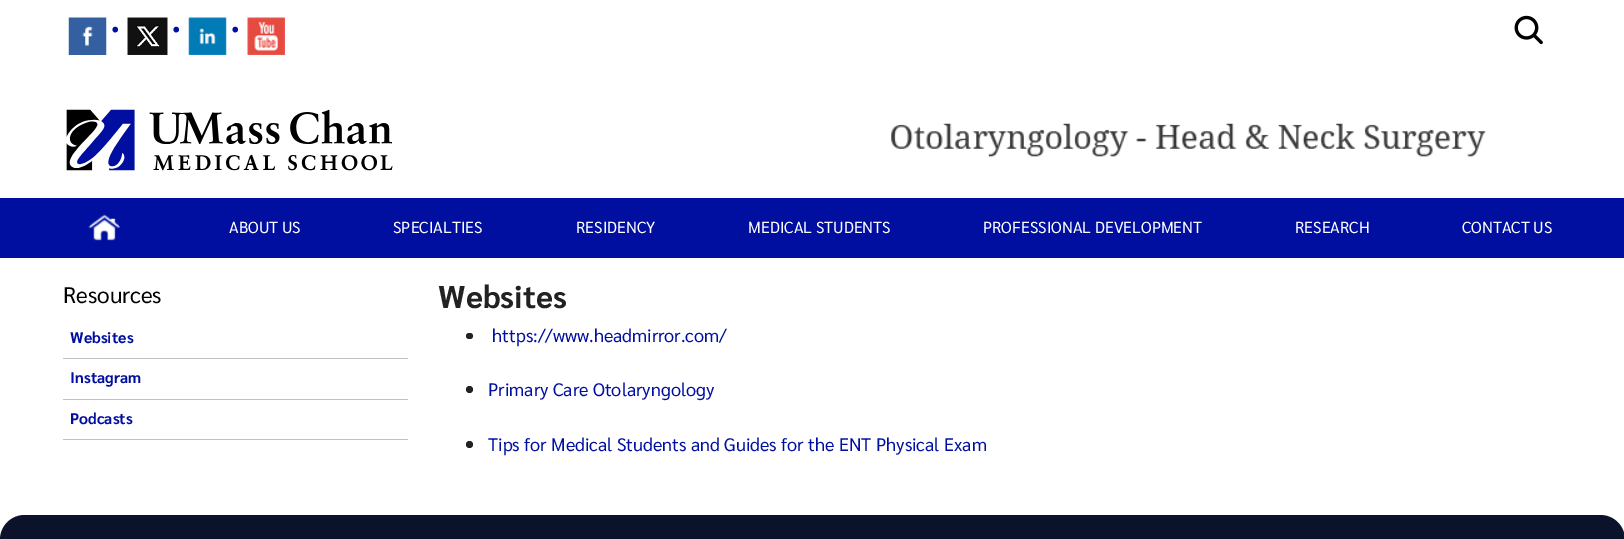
%!PS-Adobe-3.0
%%BoundingBox: 0 0 1624 539
%%LanguageLevel: 3
%%Pages: 1
%%EndComments
%%BeginProlog
/setink { dup -16 bitshift 255 div exch dup -8 bitshift 255 and 255 div exch 255 and 255 div setrgbcolor } def
/usefont { [ exch dup neg 0 0 3 -1 roll 0 0 ] selectfont } def
/disc { newpath 0 360 arc closepath } def
/rrect { 5 dict begin { /r /h /w /y /x } { exch def } forall
  x r add y moveto x w add y 2 copy h add r arct x w add y h add x 1 index r arct
  x y h add x y r arct x y 2 copy exch w add exch r arct closepath end } def
/drawimage { 5 dict begin { /h /w /y /x /name } { exch def } forall
  gsave x y translate w h scale
  w h 8 [w 0 0 h 0 0] name (r) file false 3 colorimage grestore end } def
%%EndProlog
%%BeginSetup
<< /PageSize [1624 539] >> setpagedevice
%%EndSetup
%%Page: 1 1
0 539 translate 1 -1 scale
4 setmiterlimit
16#FFFFFF setink
0 0 1624 539 rectfill
(img1.raw) 68 17 39 38 drawimage
/Sarabun-Medium 40 usefont
16#000F9F setink
110 40 moveto (·) show
(img2.raw) 127 17 41 38 drawimage
171 40 moveto (·) show
(img3.raw) 188 17 39 38 drawimage
230 40 moveto (·) show
(img4.raw) 247 17 38 38 drawimage
(img5.raw) 1514 15 29 30 drawimage
(img6.raw) 66 109 327 62 drawimage
(img7.raw) 891 123 596 34 drawimage
0 198 1624 60 rectfill
(img8.raw) 88 214 33 27 drawimage
/Sarabun-Regular 16 usefont
16#FFFFFF setink
[
    [(ABOUT US) 229 233]
    [(SPECIALTIES) 393 233]
    [(RESIDENCY) 576 233]
    [(MEDICAL STUDENTS) 748 233]
    [(PROFESSIONAL DEVELOPMENT) 983 233]
    [(RESEARCH) 1295 233]
    [(CONTACT US) 1462 233]
] { aload pop moveto show } forall
/Sarabun-Regular 22.5 usefont
16#000000 setink
63 303 moveto (Resources) show
16#C2C0C0 setink
63 358 345 1 rectfill
/Sarabun-Bold 15.5 usefont
16#000F9F setink
70 343 moveto (Websites) show
16#C2C0C0 setink
63 399 345 1 rectfill
16#000F9F setink
70 383 moveto (Instagram) show
16#C2C0C0 setink
63 439 345 1 rectfill
16#000F9F setink
70 424 moveto (Podcasts) show
/Sarabun-Bold 31.5 usefont
16#222222 setink
438 308 moveto (Websites) show
466 333 7 6 3 rrect fill
/Sarabun-Regular 18.1 usefont
16#000F9F setink
492 342 moveto (https://www.headmirror.com/) show
16#222222 setink
469.5 389.5 3.5 disc fill
16#000F9F setink
488 396 moveto (Primary Care Otolaryngology) show
16#222222 setink
469.5 444.5 3.5 disc fill
16#000F9F setink
488 451 moveto (Tips for Medical Students and Guides for the ENT Physical Exam) show
16#0A1329 setink
25 515 moveto 1600 515 lineto 1614 515 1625 526 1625 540 curveto 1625 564 lineto 0 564 lineto 0 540 lineto 0 526 11 515 25 515 curveto closepath fill
showpage
%%EOF
